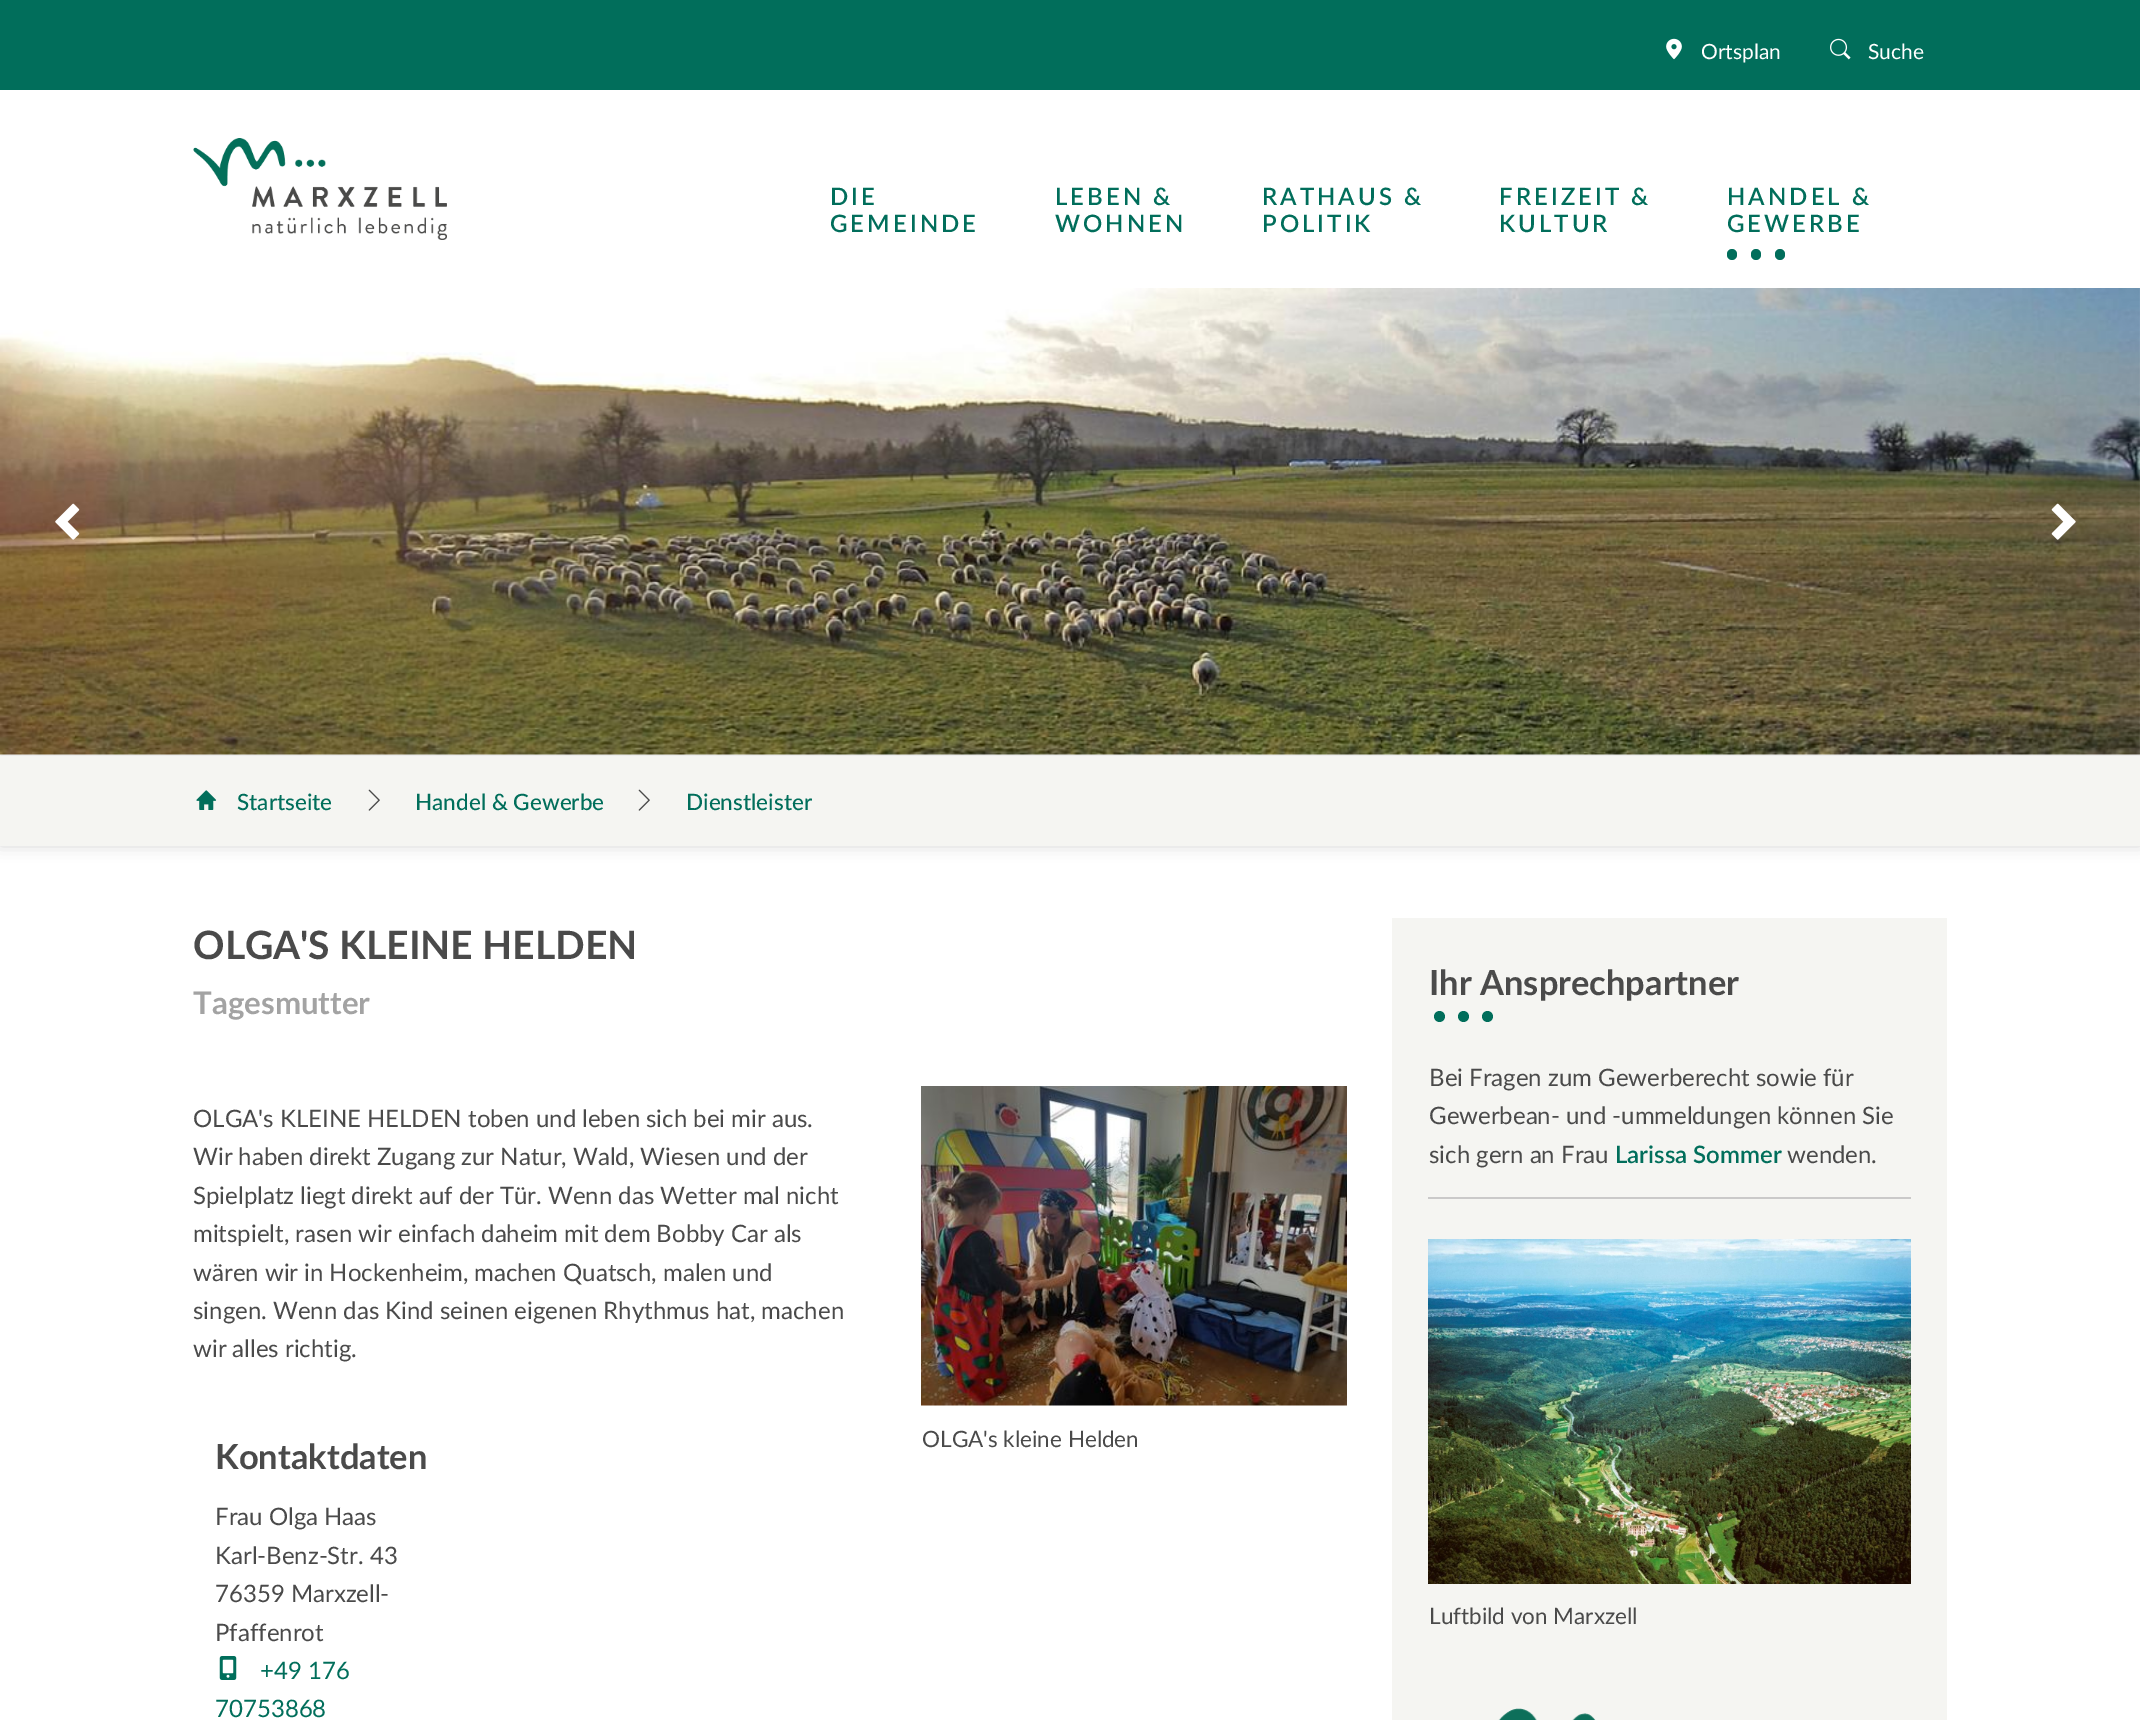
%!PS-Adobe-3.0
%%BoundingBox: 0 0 2140 1720
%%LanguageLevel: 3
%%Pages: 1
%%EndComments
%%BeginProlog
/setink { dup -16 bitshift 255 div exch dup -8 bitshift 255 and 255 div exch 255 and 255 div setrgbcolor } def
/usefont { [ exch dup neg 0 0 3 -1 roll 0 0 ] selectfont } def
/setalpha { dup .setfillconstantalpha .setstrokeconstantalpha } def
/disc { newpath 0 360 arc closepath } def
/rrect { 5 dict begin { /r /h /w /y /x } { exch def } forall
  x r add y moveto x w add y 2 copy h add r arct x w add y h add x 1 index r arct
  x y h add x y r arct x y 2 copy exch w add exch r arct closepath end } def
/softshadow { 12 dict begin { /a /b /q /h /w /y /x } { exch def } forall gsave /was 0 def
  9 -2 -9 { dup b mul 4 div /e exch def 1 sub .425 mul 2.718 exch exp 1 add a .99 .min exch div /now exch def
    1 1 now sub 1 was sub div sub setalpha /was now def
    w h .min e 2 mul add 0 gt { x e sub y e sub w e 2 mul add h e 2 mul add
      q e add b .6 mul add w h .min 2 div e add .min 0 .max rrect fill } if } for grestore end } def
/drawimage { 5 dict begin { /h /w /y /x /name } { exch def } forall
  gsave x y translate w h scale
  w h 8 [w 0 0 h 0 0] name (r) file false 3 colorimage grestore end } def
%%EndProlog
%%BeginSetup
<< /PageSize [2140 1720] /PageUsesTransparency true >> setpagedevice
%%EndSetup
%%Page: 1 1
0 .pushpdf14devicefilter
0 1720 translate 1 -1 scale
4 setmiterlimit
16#FFFFFF setink
0 0 2140 1720 rectfill
16#016E5B setink
0 0 2140 90 rectfill
(img1.raw) 1666 38 16 22 drawimage
/Lato-Regular 21 usefont
16#FFFFFF setink
1701 59 moveto (Ortsplan) show
(img2.raw) 1830 38 21 22 drawimage
1868 59 moveto (Suche) show
(img3.raw) 193 138 254 102 drawimage
/Lato-SemiBold 24 usefont
16#016E5B setink
830 205 moveto 3 0 (DIE) ashow
830 232 moveto 3 0 (GEMEINDE) ashow
1055 205 moveto 3 0 (LEBEN &) ashow
1055 232 moveto 3 0 (WOHNEN) ashow
1262 205 moveto 3 0 (RATHAUS &) ashow
1262 232 moveto 3 0 (POLITIK) ashow
1499 205 moveto 3 0 (FREIZEIT &) ashow
1499 232 moveto 3 0 (KULTUR) ashow
1727 205 moveto 3 0 (HANDEL &) ashow
1727 232 moveto 3 0 (GEWERBE) ashow
1751 249 10 11 5 rrect fill
1727 249 10 11 5 rrect fill
1775 249 10 11 5 rrect fill
16#000000 setink
0 756 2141 90 0 7.5 0.15 softshadow
16#EEEEEE setink
0 288 2140 467 rectfill
(img4.raw) 0 288 2140 467 drawimage
(img5.raw) 55 503 25 37 drawimage
(img6.raw) 2051 503 25 37 drawimage
16#F5F5F2 setink
0 756 2140 90 rectfill
(img7.raw) 196 790 21 20 drawimage
/Lato-Medium 22.5 usefont
16#016E5B setink
237 810 moveto (Startseite) show
(img8.raw) 368 789 12 22 drawimage
415 810 moveto (Handel & Gewerbe) show
(img8.raw) 638 789 12 22 drawimage
686 810 moveto (Dienstleister) show
/Lato-Bold 39 usefont
16#4A4A4A setink
193 959 moveto (OLGA'S KLEINE HELDEN) show
/Lato-Bold 31.25 usefont
16#A3A3A3 setink
193 1014 moveto (Tagesmutter) show
/Lato-Regular 24 usefont
16#4A4A4A setink
[
    [(OLGA's KLEINE HELDEN toben und leben sich bei mir aus.) 193 1127]
    [(Wir haben direkt Zugang zur Natur, Wald, Wiesen und der) 193 1165]
    [(Spielplatz liegt direkt auf der Tür. Wenn das Wetter mal nicht) 193 1204]
    [(mitspielt, rasen wir einfach daheim mit dem Bobby Car als) 193 1242]
    [(wären wir in Hockenheim, machen Quatsch, malen und) 193 1281]
    [(singen. Wenn das Kind seinen eigenen Rhythmus hat, machen) 193 1319]
    [(wir alles richtig.) 193 1357]
] { aload pop moveto show } forall
(img9.raw) 921 1086 426 320 drawimage
/Lato-Regular 22.5 usefont
922 1447 moveto (OLGA's kleine Helden) show
/Lato-Bold 34.5 usefont
215 1469 moveto (Kontaktdaten) show
/Lato-Regular 24 usefont
[
    [(Frau Olga Haas) 215 1525]
    [(Karl-Benz-Str. 43) 215 1564]
    [(76359 Marxzell-) 215 1602]
    [(Pfaffenrot) 215 1641]
] { aload pop moveto show } forall
(img10.raw) 219 1656 18 24 drawimage
16#016E5B setink
260 1679 moveto (+49 176) show
215 1717 moveto (70753868) show
16#F5F5F2 setink
1392 918 555 802 rectfill
16#CAC9C9 setink
1428 1197 483 2 rectfill
/Lato-Bold 34.5 usefont
16#4A4A4A setink
1429 995 moveto (Ihr Ansprechpartner) show
16#016E5B setink
1463.5 1016.5 5.5 disc fill
1439.5 1016.5 5.5 disc fill
1487.5 1016.5 5.5 disc fill
/Lato-Regular 24 usefont
16#4A4A4A setink
[
    [(Bei Fragen zum Gewerberecht sowie für) 1429 1086]
    [(Gewerbean- und -ummeldungen können Sie) 1429 1124]
    [(sich gern an Frau) 1429 1163]
] { aload pop moveto show } forall
/Lato-SemiBold 24 usefont
16#016E5B setink
1615 1163 moveto (Larissa Sommer) show
/Lato-Regular 24 usefont
16#4A4A4A setink
1787 1163 moveto (wenden.) show
(img11.raw) 1428 1239 483 345 drawimage
/Lato-Regular 22.5 usefont
1429 1624 moveto (Luftbild von Marxzell) show
(img12.raw) 1498 1708 98 12 drawimage
.poppdf14devicefilter showpage
%%EOF
